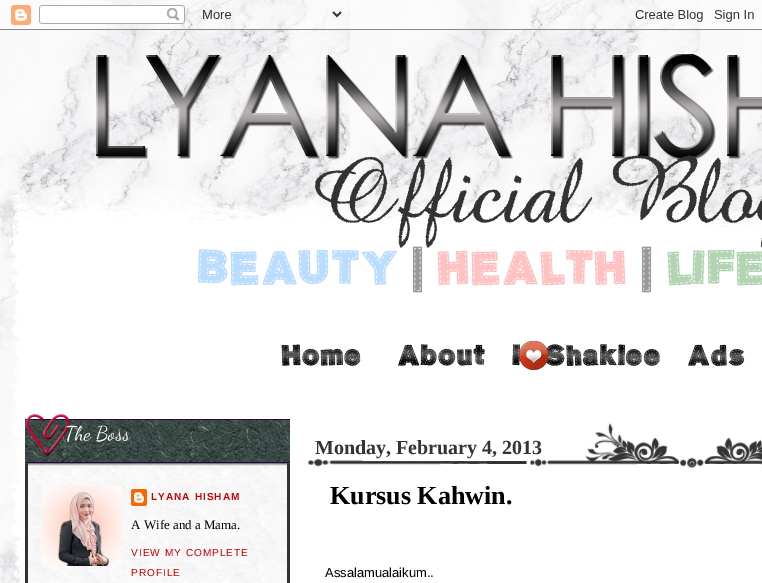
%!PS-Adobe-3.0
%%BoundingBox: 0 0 762 583
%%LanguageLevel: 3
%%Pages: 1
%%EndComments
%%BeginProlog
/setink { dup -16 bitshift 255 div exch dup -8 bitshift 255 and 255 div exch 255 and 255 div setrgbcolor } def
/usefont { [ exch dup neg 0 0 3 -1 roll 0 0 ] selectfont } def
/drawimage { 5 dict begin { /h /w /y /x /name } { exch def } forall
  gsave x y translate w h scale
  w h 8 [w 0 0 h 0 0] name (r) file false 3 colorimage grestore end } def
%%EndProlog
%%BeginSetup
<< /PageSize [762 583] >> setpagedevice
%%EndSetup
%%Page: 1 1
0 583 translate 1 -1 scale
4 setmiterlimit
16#FFFFFF setink
0 0 762 583 rectfill
(img1.raw) 0 0 762 583 drawimage
(img2.raw) 0 0 762 30 drawimage
(img3.raw) 9 53 753 247 drawimage
(img4.raw) 0 300 762 283 drawimage
(img5.raw) 281 344 80 22 drawimage
(img6.raw) 398 344 87 22 drawimage
(img7.raw) 512 341 148 29 drawimage
(img8.raw) 688 344 57 22 drawimage
(img9.raw) 25 414 265 55 drawimage
/DancingScript-Regular 20 usefont
65 440 moveto (The Boss) show
(img10.raw) 25 469 265 114 drawimage
(img11.raw) 42 486 80 80 drawimage
(img12.raw) 131 489 16 17 drawimage
/LiberationSans-Bold 10.1 usefont
16#CC0000 setink
151 500 moveto 1 0 (LYANA HISHAM) ashow
/LiberationSerif-Regular 13 usefont
16#000000 setink
131 529 moveto (A Wife and a Mama.) show
/LiberationSans-Regular 10.1 usefont
16#CC0000 setink
131 556 moveto 1 0 (VIEW MY COMPLETE) ashow
131 576 moveto 1 0 (PROFILE) ashow
(img13.raw) 308 423 454 45 drawimage
/LiberationSerif-Bold 20 usefont
16#333333 setink
315 454 moveto (Monday, February 4, 2013) show
/LiberationSerif-Bold 26 usefont
16#000000 setink
330 504 moveto (Kursus Kahwin.) show
/LiberationSans-Regular 13 usefont
325 577 moveto (Assalamualaikum..) show
showpage
%%EOF
